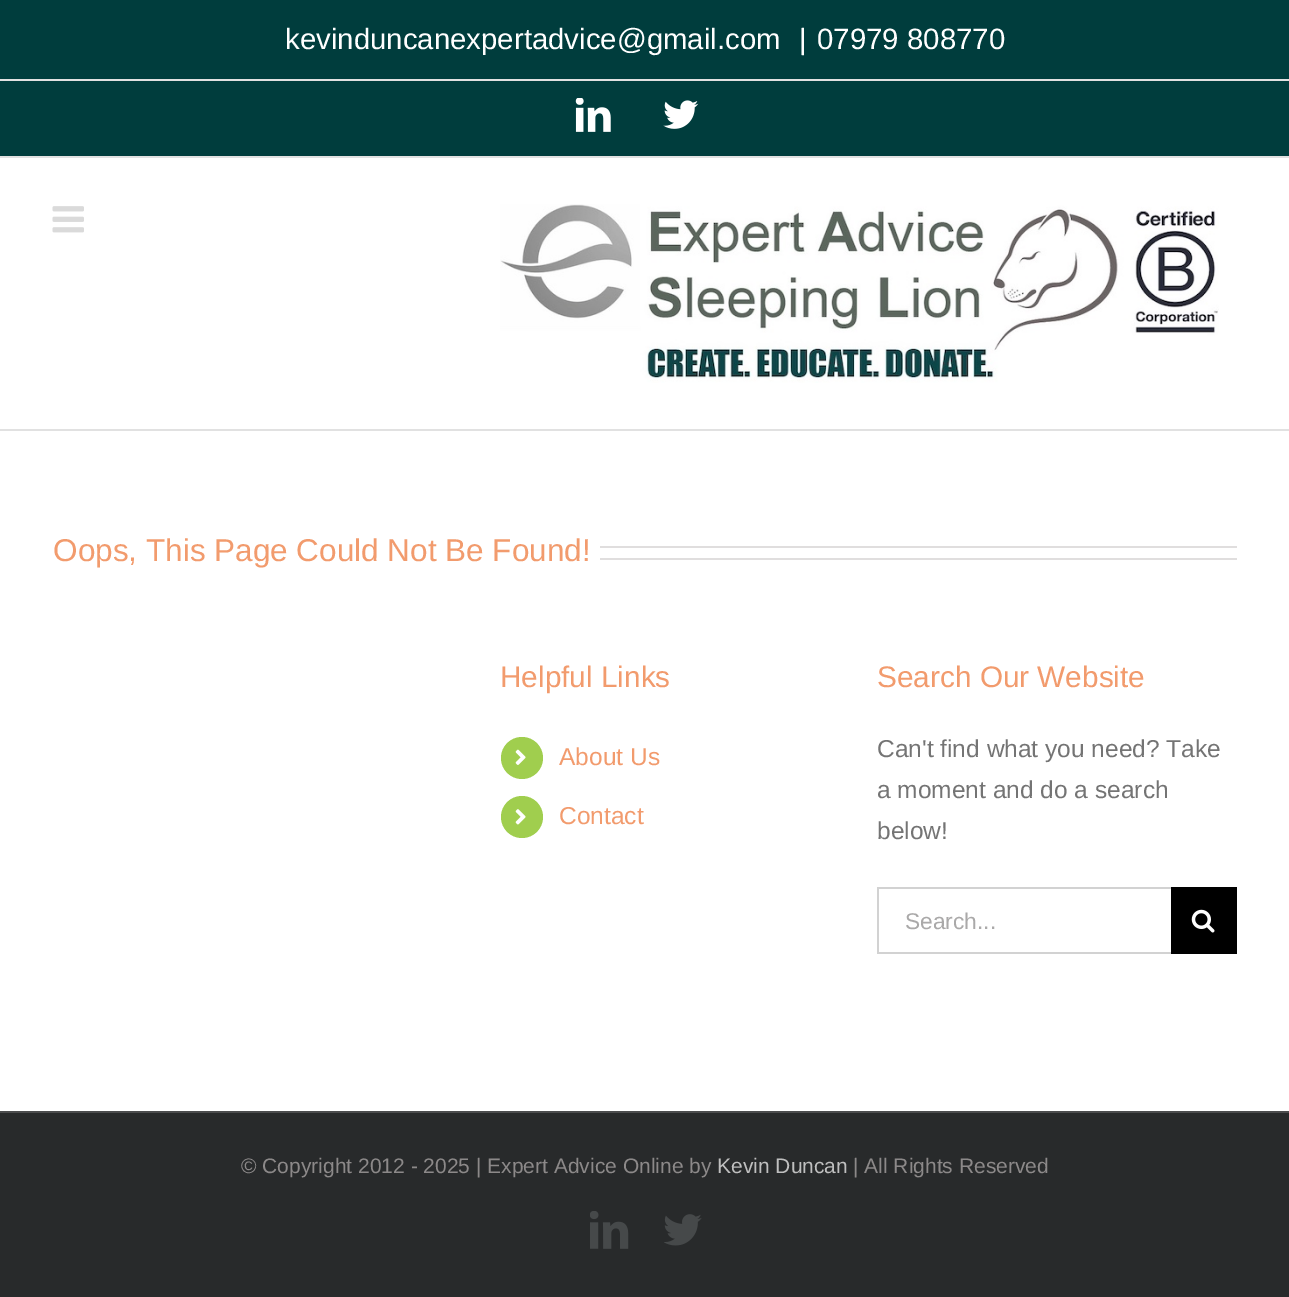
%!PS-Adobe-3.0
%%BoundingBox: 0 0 1289 1297
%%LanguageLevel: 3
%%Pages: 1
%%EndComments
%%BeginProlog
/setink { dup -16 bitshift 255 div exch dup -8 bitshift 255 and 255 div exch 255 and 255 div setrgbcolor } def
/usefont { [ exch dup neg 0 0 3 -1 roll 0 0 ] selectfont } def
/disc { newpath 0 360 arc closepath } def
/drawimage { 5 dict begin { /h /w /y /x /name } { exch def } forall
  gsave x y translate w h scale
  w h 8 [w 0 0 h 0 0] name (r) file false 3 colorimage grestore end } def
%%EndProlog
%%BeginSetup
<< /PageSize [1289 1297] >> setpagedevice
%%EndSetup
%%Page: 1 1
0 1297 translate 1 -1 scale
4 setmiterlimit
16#FFFFFF setink
0 0 1289 1297 rectfill
[
    [0 0 1289 156 16#003D3D]
    [0 156 1289 2 16#E1E1E1]
    [0 79 1289 2 16#E1E1E1]
] { aload pop setink rectfill } forall
/LiberationSans-Regular 29.4 usefont
16#FFFFFF setink
[
    [(kevinduncanexpertadvice@gmail.com) 285 49]
    [(|) 799 49]
    [(07979 808770) 817 49]
] { aload pop moveto show } forall
(img1.raw) 575 98 36 34 drawimage
(img2.raw) 663 100 36 29 drawimage
16#E1E1E1 setink
0 429 1289 2 rectfill
(img3.raw) 52 206 32 27 drawimage
(img4.raw) 500 204 719 179 drawimage
/LiberationSans-Regular 31.5 usefont
16#F29B6D setink
53 561 moveto (Oops, This Page Could Not Be Found!) show
16#E0DEDE setink
600 546 637 2 rectfill
600 558 637 2 rectfill
/LiberationSans-Regular 29.75 usefont
16#F29B6D setink
500 687 moveto (Helpful Links) show
16#A0CE4E setink
522 758 21 disc fill
(img5.raw) 515 749 11 16 drawimage
/LiberationSans-Regular 24.5 usefont
16#F29B6D setink
559 765 moveto (About Us) show
16#A0CE4E setink
522 817 21 disc fill
(img6.raw) 515 809 11 16 drawimage
16#F29B6D setink
559 824 moveto (Contact) show
/LiberationSans-Regular 29.75 usefont
877 687 moveto (Search Our Website) show
/LiberationSans-Regular 24.5 usefont
16#747474 setink
[
    [(Can't find what you need? Take) 877 757]
    [(a moment and do a search) 877 798]
    [(below!) 877 839]
] { aload pop moveto show } forall
[
    [877 887 294 2 16#D2D2D2]
    [877 952 294 2 16#D2D2D2]
    [877 887 2 67 16#D2D2D2]
] { aload pop setink rectfill } forall
/LiberationSans-Regular 22.75 usefont
16#AAA9A9 setink
905 929 moveto (Search...) show
16#000000 setink
1171 887 66 67 rectfill
(img7.raw) 1191 909 24 24 drawimage
16#282A2B setink
0 1113 1289 184 rectfill
16#4B4C4D setink
0 1111 1289 2 rectfill
/LiberationSans-Regular 21 usefont
16#8C8989 setink
241 1173 moveto (© Copyright 2012 - 2025 | Expert Advice Online by) show
16#BFBFBF setink
717 1173 moveto (Kevin Duncan) show
16#8C8989 setink
853 1173 moveto (| All Rights Reserved) show
(img8.raw) 590 1211 39 38 drawimage
(img9.raw) 664 1214 38 32 drawimage
showpage
%%EOF
